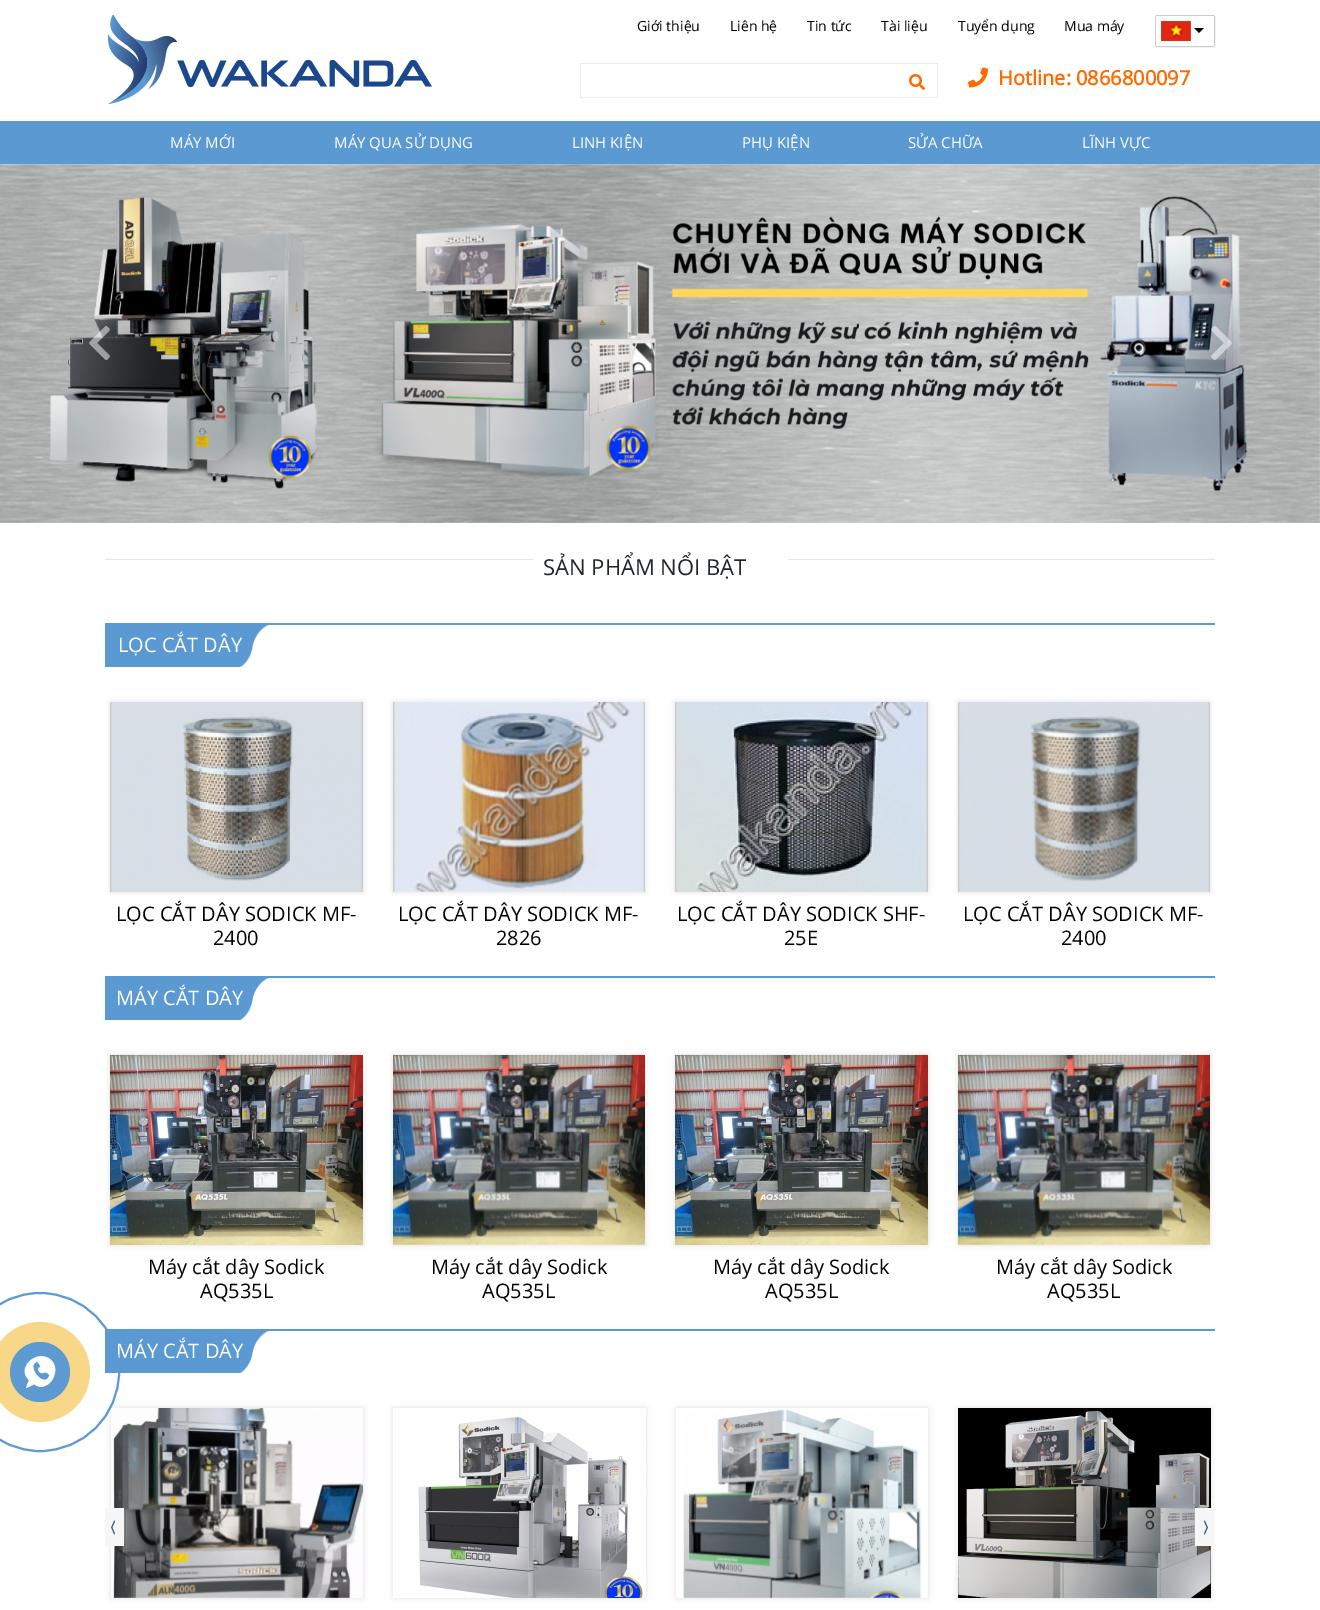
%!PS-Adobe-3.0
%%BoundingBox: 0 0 1320 1610
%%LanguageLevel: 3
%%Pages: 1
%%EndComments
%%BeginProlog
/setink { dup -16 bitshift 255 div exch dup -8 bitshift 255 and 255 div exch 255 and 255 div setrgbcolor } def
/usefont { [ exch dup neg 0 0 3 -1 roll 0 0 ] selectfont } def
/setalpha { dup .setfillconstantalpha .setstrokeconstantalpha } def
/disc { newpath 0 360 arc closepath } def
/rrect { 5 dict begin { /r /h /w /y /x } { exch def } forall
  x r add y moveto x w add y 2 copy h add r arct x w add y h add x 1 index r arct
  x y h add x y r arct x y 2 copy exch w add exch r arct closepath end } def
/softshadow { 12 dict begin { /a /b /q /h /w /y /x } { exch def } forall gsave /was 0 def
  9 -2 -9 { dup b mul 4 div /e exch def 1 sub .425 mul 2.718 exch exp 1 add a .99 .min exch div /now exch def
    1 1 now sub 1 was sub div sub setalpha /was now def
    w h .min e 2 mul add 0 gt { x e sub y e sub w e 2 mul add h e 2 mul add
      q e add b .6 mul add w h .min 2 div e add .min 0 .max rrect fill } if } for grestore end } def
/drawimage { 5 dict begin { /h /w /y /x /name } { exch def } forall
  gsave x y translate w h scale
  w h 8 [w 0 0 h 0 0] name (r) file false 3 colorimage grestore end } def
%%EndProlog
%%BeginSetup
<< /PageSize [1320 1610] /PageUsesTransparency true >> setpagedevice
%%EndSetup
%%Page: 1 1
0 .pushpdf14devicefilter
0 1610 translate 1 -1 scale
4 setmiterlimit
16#FFFFFF setink
0 0 1320 1610 rectfill
(img1.raw) 108 15 324 89 drawimage
/OpenSans-Regular 14 usefont
16#000000 setink
[
    [(Giới thiệu) 637 31]
    [(Liên hệ) 730 31]
    [(Tin tức) 807 31]
    [(Tài liệu) 881 31]
    [(Tuyển dụng) 958 31]
    [(Mua máy) 1064 31]
] { aload pop moveto show } forall
16#CCCCCC setink
1155.5 15.5 59 31 1.5 rrect stroke
16#FFFFFF setink
1156 16 58 30 rectfill
(img2.raw) 1161 21 30 20 drawimage
16#000000 setink
1194 28 moveto 1204 28 lineto 1199 33 lineto closepath fill
[
    [580 63 358 1 16#EBEBEB]
    [937 63 1 35 16#EBEBEB]
    [580 97 358 1 16#EBEBEB]
] { aload pop setink rectfill } forall
(img3.raw) 909 74 16 16 drawimage
580 63 1 35 rectfill
(img4.raw) 968 67 20 21 drawimage
/OpenSans-Bold 20 usefont
16#FF6A00 setink
998 85 moveto (Hotline: 0866800097) show
16#5B99D2 setink
0 121 1320 43 rectfill
/OpenSans-Regular 15 usefont
16#FFFFFF setink
[
    [(MÁY MỚI) 170 148]
    [(MÁY QUA SỬ DỤNG) 334 148]
    [(LINH KIỆN) 572 148]
    [(PHỤ KIỆN) 742 148]
    [(SỬA CHỮA) 908 148]
    [(LĨNH VỰC) 1082 148]
] { aload pop moveto show } forall
16#5B99D2 setink
105 1329 1110 2 rectfill
(img9.raw) 105 1331 164 42 drawimage
/OpenSans-Regular 20 usefont
16#FFFFFF setink
116 1358 moveto (MÁY CẮT DÂY) show
16#E0E0E0 setink
111 1408 252 190 0 3 1 softshadow
(img16.raw) 111 1408 252 190 drawimage
0.99 setalpha
16#5B99D2 setink
2 setlinewidth
40 1372 79 disc stroke
1 setalpha
16#F8D789 setink
40 1372 50 disc fill
16#5D9AD1 setink
40 1372 30 disc fill
(img5.raw) 24 1356 32 32 drawimage
(img6.raw) 0 164 1320 359 drawimage
(img7.raw) 89 326 21 34 drawimage
(img8.raw) 1211 326 21 34 drawimage
16#E6E6E6 setink
105 559 1110 1 rectfill
16#FFFFFF setink
533 559 255 1 rectfill
/OpenSans-Regular 22 usefont
16#212529 setink
543 575 moveto (SẢN PHẨM NỔI BẬT) show
16#5B99D2 setink
105 623 1110 2 rectfill
(img9.raw) 105 625 164 42 drawimage
/OpenSans-Regular 20 usefont
16#FFFFFF setink
118 652 moveto (LỌC CẮT DÂY) show
16#E0E0E0 setink
110 702 253 190 0 3 1 softshadow
(img10.raw) 110 702 253 190 drawimage
16#000000 setink
116 921 moveto (LỌC CẮT DÂY SODICK MF-) show
213 945 moveto (2400) show
16#E0E0E0 setink
393 702 252 190 0 3 1 softshadow
(img11.raw) 393 702 252 190 drawimage
16#000000 setink
398 921 moveto (LỌC CẮT DÂY SODICK MF-) show
496 945 moveto (2826) show
16#E0E0E0 setink
675 702 253 190 0 3 1 softshadow
(img12.raw) 675 702 253 190 drawimage
16#000000 setink
677 921 moveto (LỌC CẮT DÂY SODICK SHF-) show
784 945 moveto (25E) show
16#E0E0E0 setink
958 702 252 190 0 3 1 softshadow
(img13.raw) 958 702 252 190 drawimage
16#000000 setink
963 921 moveto (LỌC CẮT DÂY SODICK MF-) show
1061 945 moveto (2400) show
16#5B99D2 setink
105 976 1110 2 rectfill
(img9.raw) 105 978 164 42 drawimage
16#FFFFFF setink
116 1005 moveto (MÁY CẮT DÂY) show
16#E0E0E0 setink
110 1055 253 190 0 3 1 softshadow
(img14.raw) 110 1055 253 190 drawimage
16#000000 setink
148 1274 moveto (Máy cắt dây Sodick) show
200 1298 moveto (AQ535L) show
16#E0E0E0 setink
393 1055 252 190 0 3 1 softshadow
(img15.raw) 393 1055 252 190 drawimage
16#000000 setink
431 1274 moveto (Máy cắt dây Sodick) show
482 1298 moveto (AQ535L) show
16#E0E0E0 setink
675 1055 253 190 0 3 1 softshadow
(img14.raw) 675 1055 253 190 drawimage
16#000000 setink
713 1274 moveto (Máy cắt dây Sodick) show
765 1298 moveto (AQ535L) show
16#E0E0E0 setink
958 1055 252 190 0 3 1 softshadow
(img15.raw) 958 1055 252 190 drawimage
16#000000 setink
996 1274 moveto (Máy cắt dây Sodick) show
1047 1298 moveto (AQ535L) show
gsave
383 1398 moveto 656 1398 lineto 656 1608 lineto 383 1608 lineto closepath 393 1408 moveto 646 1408 lineto 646 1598 lineto 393 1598 lineto closepath eoclip newpath
16#E0E0E0 setink
393 1408 253 190 0 3 1 softshadow
grestore
(img17.raw) 418 1416 227 182 drawimage
gsave
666 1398 moveto 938 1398 lineto 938 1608 lineto 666 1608 lineto closepath 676 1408 moveto 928 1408 lineto 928 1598 lineto 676 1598 lineto closepath eoclip newpath
16#E0E0E0 setink
676 1408 252 190 0 3 1 softshadow
grestore
(img18.raw) 683 1409 239 189 drawimage
gsave
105 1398 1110 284 rectclip
16#E0E0E0 setink
958 1408 253 190 0 3 1 softshadow
grestore
(img19.raw) 958 1408 253 190 drawimage
(img20.raw) 105 1508 19 38 drawimage
(img21.raw) 1195 1508 17 38 drawimage
.poppdf14devicefilter showpage
%%EOF
